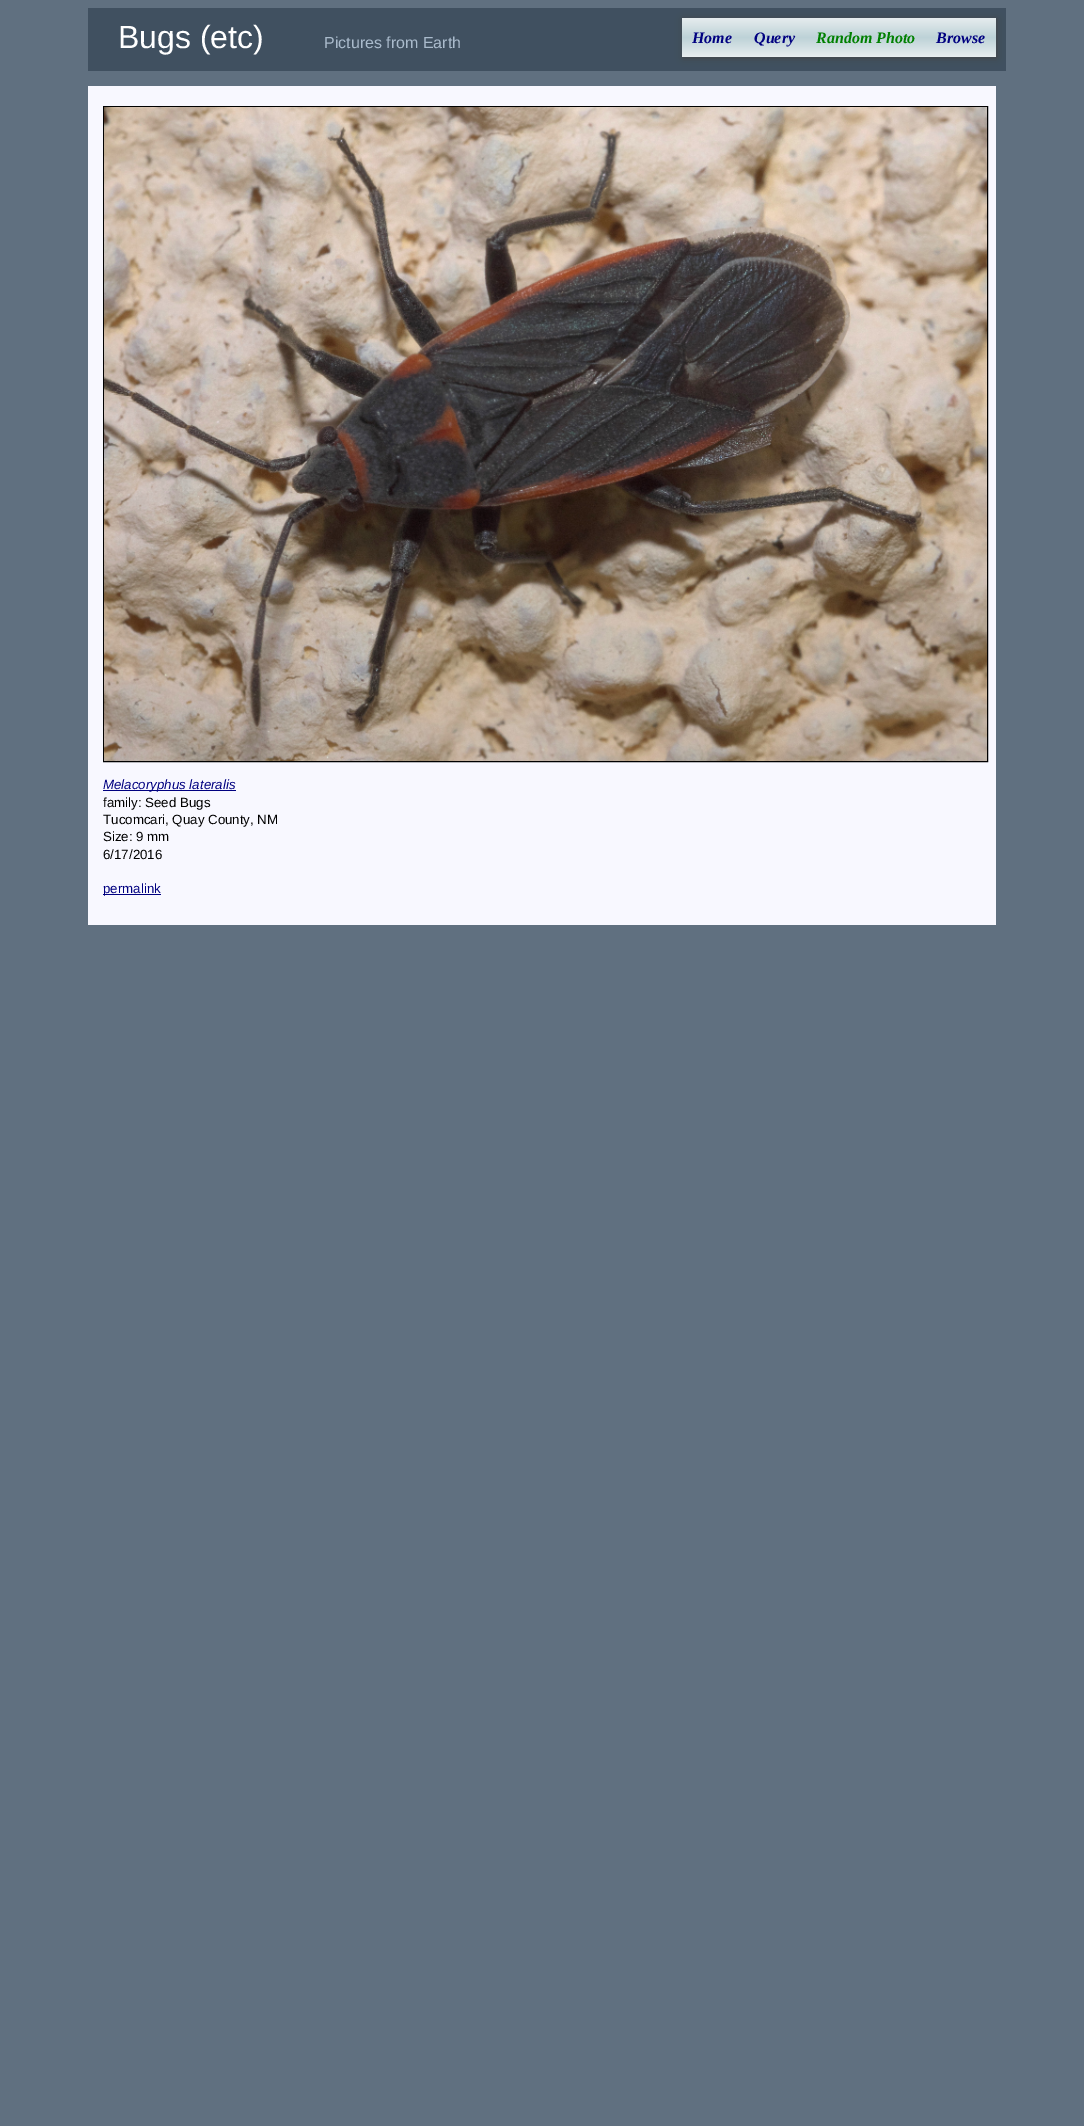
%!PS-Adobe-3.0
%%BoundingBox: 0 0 1084 2126
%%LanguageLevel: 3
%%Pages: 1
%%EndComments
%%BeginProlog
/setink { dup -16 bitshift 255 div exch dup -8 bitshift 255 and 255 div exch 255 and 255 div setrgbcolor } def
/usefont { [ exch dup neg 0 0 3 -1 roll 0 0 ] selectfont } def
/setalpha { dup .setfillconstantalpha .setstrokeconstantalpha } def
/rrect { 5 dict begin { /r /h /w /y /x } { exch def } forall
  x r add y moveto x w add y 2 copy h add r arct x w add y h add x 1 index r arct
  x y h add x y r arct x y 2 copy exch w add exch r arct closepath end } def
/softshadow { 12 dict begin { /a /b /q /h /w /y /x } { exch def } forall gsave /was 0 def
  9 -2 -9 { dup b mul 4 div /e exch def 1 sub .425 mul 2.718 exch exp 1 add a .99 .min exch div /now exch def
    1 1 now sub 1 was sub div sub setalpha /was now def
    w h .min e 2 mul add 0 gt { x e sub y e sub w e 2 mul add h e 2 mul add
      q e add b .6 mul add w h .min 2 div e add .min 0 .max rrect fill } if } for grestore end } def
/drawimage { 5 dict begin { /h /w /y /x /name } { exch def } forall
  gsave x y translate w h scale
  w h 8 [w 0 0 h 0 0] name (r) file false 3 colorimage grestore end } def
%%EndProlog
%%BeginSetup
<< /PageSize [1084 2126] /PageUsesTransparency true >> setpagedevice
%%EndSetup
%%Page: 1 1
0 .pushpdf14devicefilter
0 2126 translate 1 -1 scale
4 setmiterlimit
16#607080 setink
0 0 1084 2126 rectfill
16#405060 setink
88 8 918 63 rectfill
/LiberationSans-Regular 32 usefont
16#FFFFFF setink
118 48 moveto (Bugs \(etc\)) show
/LiberationSans-Regular 16 usefont
16#AABBCC setink
324 48 moveto (Pictures from Earth) show
16#444444 setink
683 19 314 39 0 4 1 softshadow
gsave 682 18 moveto 996 18 lineto 996 57 lineto 682 57 lineto closepath clip newpath
<< /ShadingType 2 /ColorSpace /DeviceRGB /Coords [839 18 839 57] /Extend [true true] /Function << /FunctionType 3 /Domain [0 1] /Functions [<< /FunctionType 2 /Domain [0 1] /C0 [0.902 0.925 0.933] /C1 [0.741 0.824 0.843] /N 1 >> << /FunctionType 2 /Domain [0 1] /C0 [0.741 0.824 0.843] /C1 [0.91 0.933 0.941] /N 1 >>] /Bounds [0.5] /Encode [0 1 0 1] >> >> shfill grestore
/LiberationSerif-BoldItalic 16 usefont
16#000080 setink
692 43 moveto (Home) show
754 43 moveto (Query) show
16#008000 setink
816 43 moveto (Random Photo) show
16#000080 setink
936 43 moveto (Browse) show
16#F8F8FF setink
88 86 908 839 rectfill
16#000000 setink
103.5 106.5 884 655 rectstroke
(img1.raw) 104 107 883 654 drawimage
16#000080 setink
103 790 133 1 rectfill
/LiberationSans-Italic 13.3 usefont
103 789 moveto (Melacoryphus lateralis) show
/LiberationSans-Regular 13.3 usefont
16#000000 setink
[
    [(family: Seed Bugs) 103 807]
    [(Tucomcari, Quay County, NM) 103 824]
    [(Size: 9 mm) 103 841]
    [(6/17/2016) 103 859]
] { aload pop moveto show } forall
16#000080 setink
103 894 58 1 rectfill
103 893 moveto (permalink) show
.poppdf14devicefilter showpage
%%EOF
